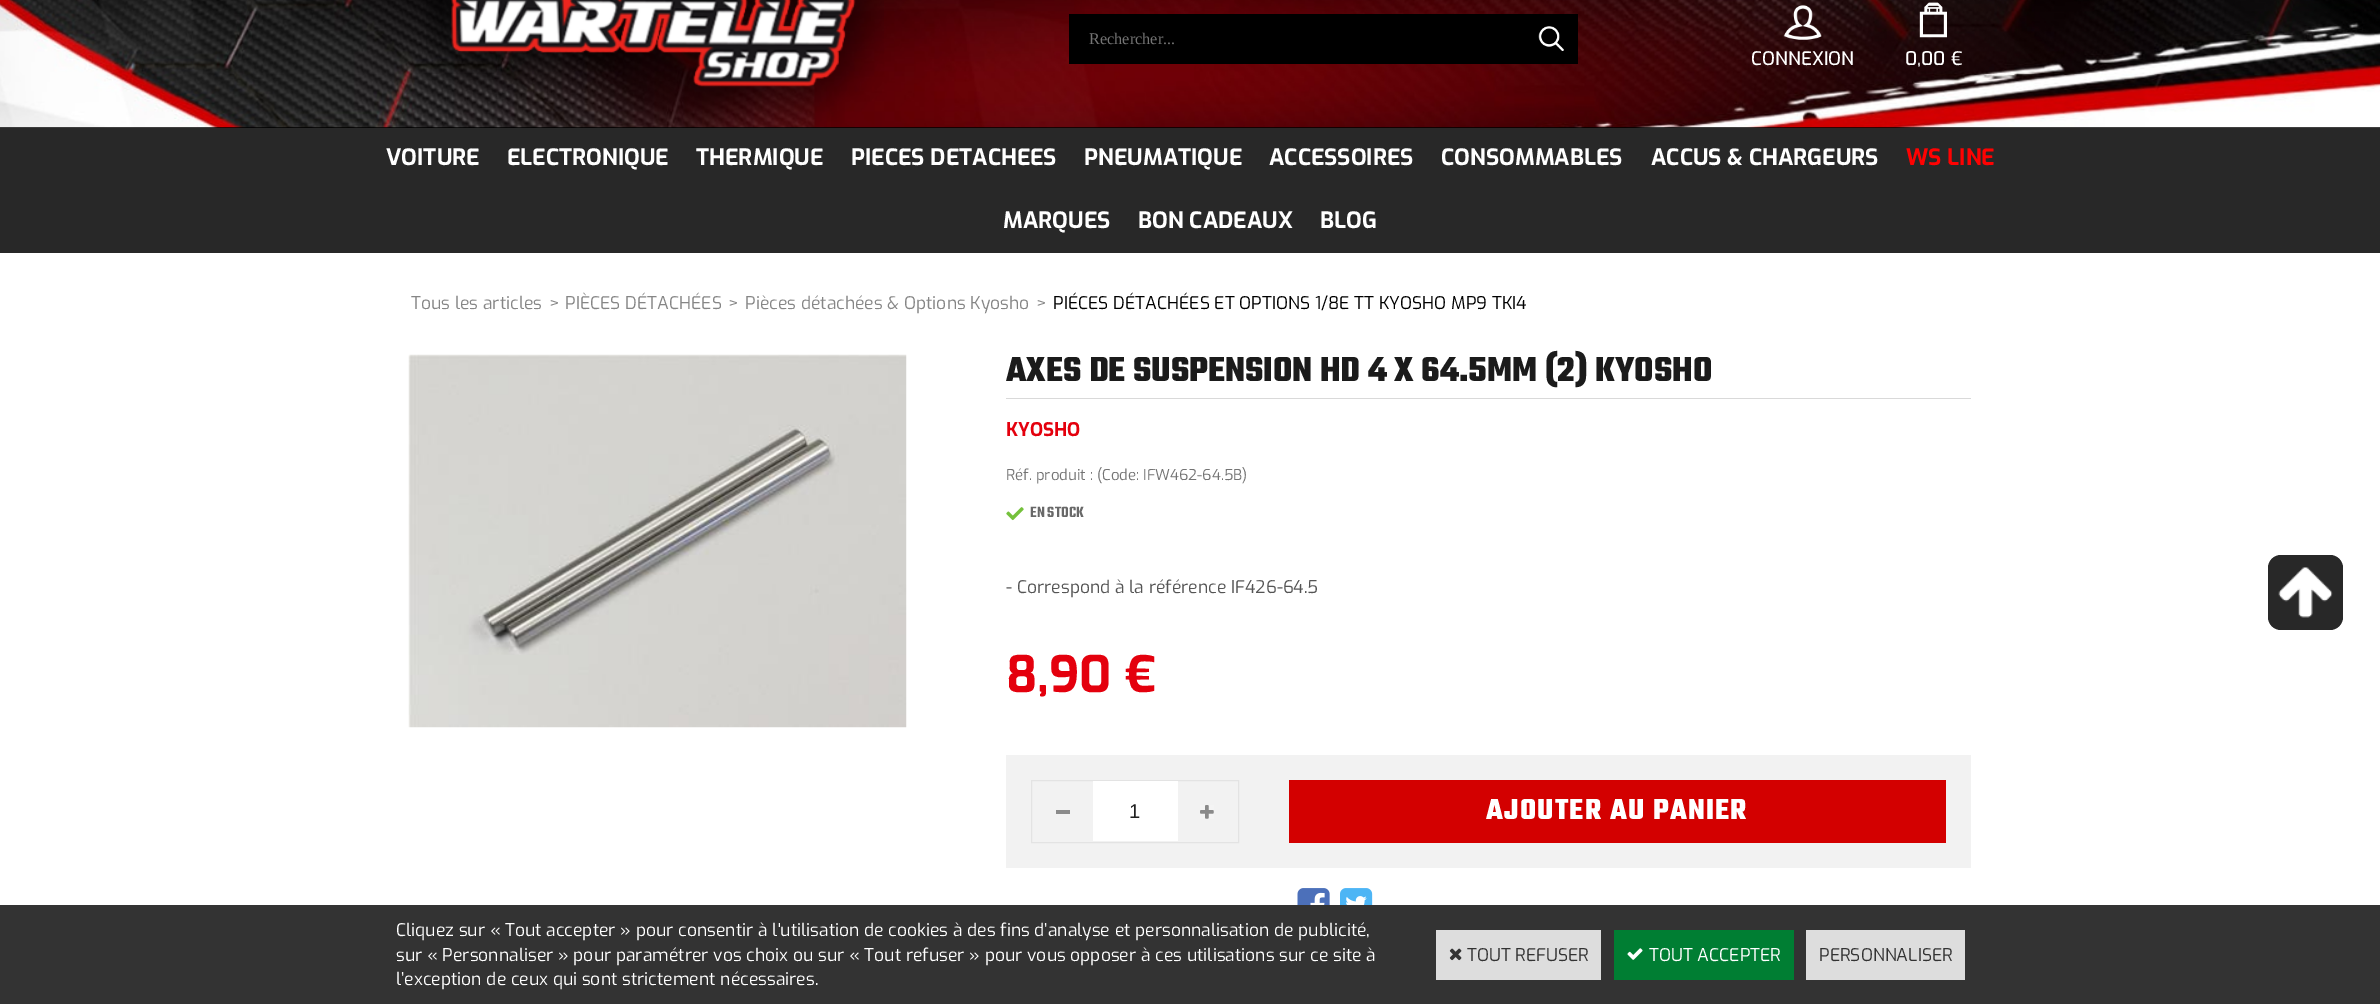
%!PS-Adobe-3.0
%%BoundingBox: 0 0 2380 1004
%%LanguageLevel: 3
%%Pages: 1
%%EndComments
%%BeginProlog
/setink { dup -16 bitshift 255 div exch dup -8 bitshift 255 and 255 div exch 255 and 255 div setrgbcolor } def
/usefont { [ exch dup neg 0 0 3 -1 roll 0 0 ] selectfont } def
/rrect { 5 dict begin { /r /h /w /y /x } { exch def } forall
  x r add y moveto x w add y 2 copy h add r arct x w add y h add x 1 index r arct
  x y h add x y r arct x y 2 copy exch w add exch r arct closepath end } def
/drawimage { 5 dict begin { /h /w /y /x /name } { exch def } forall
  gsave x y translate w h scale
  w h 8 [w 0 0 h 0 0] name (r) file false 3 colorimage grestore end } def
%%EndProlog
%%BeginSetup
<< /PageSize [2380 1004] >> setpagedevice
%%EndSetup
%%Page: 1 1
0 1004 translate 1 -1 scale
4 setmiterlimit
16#FFFFFF setink
0 0 2380 1004 rectfill
16#000000 setink
0 127 2380 1 rectfill
(img1.raw) 0 0 2380 128 drawimage
(img2.raw) 426 0 458 128 drawimage
1069 14 509 50 rectfill
/LiberationSerif-Regular 16.25 usefont
16#747474 setink
1089 44 moveto (Rechercher...) show
(img3.raw) 1538 26 26 25 drawimage
(img4.raw) 1783 5 39 35 drawimage
/Exo-Medium 18.75 usefont
16#FFFFFF setink
1751 65 moveto (CONNEXION) show
(img5.raw) 1919 2 28 36 drawimage
1905 65 moveto (0,00 €) show
16#282828 setink
0 128 2380 125 rectfill
/Exo-Bold 22.5 usefont
16#FFFFFF setink
[
    [(VOITURE) 386 165]
    [(ELECTRONIQUE) 507 165]
    [(THERMIQUE) 696 165]
    [(PIECES DETACHEES) 851 165]
    [(PNEUMATIQUE) 1084 165]
    [(ACCESSOIRES) 1269 165]
    [(CONSOMMABLES) 1441 165]
    [(ACCUS & CHARGEURS) 1651 165]
] { aload pop moveto show } forall
16#FF0202 setink
1906 165 moveto (WS LINE) show
16#FFFFFF setink
[
    [(MARQUES) 1003 228]
    [(BON CADEAUX) 1138 228]
    [(BLOG) 1320 228]
] { aload pop moveto show } forall
/Exo-Regular 17.5 usefont
16#868686 setink
[
    [(Tous les articles) 411 309]
    [(>) 549 309]
    [(PIÈCES DÉTACHÉES) 565 309]
    [(>) 728 309]
    [(Pièces détachées & Options Kyosho) 745 309]
    [(>) 1036 309]
] { aload pop moveto show } forall
16#000000 setink
1053 309 moveto (PIÉCES DÉTACHÉES ET OPTIONS 1/8E TT KYOSHO MP9 TKI4) show
(img6.raw) 408 354 499 374 drawimage
16#D9D9D9 setink
1006 398 965 1 rectfill
/Teko-Bold 37.5 usefont
16#1B1B1B setink
1006 381 moveto (AXES DE SUSPENSION HD 4 X 64.5MM \(2\) KYOSHO) show
/Exo-Bold 18.75 usefont
16#E4000D setink
1006 436 moveto (KYOSHO) show
/Exo-Regular 15 usefont
16#747474 setink
1006 480 moveto (Réf. produit : \(Code: IFW462-64.5B\)) show
(img7.raw) 1006 507 18 14 drawimage
/Teko-SemiBold 16.25 usefont
16#686868 setink
1030 517 moveto (EN STOCK) show
/Exo-Regular 17.5 usefont
16#555555 setink
1006 593 moveto (- Correspond à la référence IF426-64.5) show
/Exo-Bold 50 usefont
16#E4000D setink
1006 692 moveto (8,90 €) show
16#F2F2F2 setink
1006 755 965 113 rectfill
16#E3E3E3 setink
1031.5 780.5 207 62 rectstroke
16#8B8B8B setink
1056 810 14 4 rectfill
16#FFFFFF setink
1093 781 85 60 rectfill
/LiberationSans-Regular 20 usefont
16#212121 setink
1129 818 moveto (1) show
(img8.raw) 1200 805 14 14 drawimage
16#D30000 setink
1289 780 657 63 rectfill
/Teko-Bold 31.25 usefont
16#FFFFFF setink
1486 819 moveto 1.25 0 (AJOUTER AU PANIER) ashow
(img9.raw) 1297 888 33 17 drawimage
(img10.raw) 1340 888 33 17 drawimage
16#282828 setink
2268 555 75 75 13 rrect fill
(img11.raw) 2278 567 55 51 drawimage
16#333333 setink
0 905 2380 99 rectfill
/Exo-Regular 17.5 usefont
16#FFFFFF setink
[
    [(Cliquez sur « Tout accepter » pour consentir à l'utilisation de cookies à des fins d’analyse et personnalisation de publicité,) 396 936]
    [(sur « Personnaliser » pour paramétrer vos choix ou sur « Tout refuser » pour vous opposer à ces utilisations sur ce site à) 396 961]
    [(l’exception de ceux qui sont strictement nécessaires.) 396 985]
] { aload pop moveto show } forall
16#DDDDDD setink
1436 930 165 50 rectfill
(img12.raw) 1449 948 13 13 drawimage
16#333333 setink
1467 961 moveto (TOUT REFUSER) show
16#007E33 setink
1614 930 180 50 rectfill
(img13.raw) 1627 948 16 12 drawimage
16#FFFFFF setink
1649 961 moveto (TOUT ACCEPTER) show
16#DDDDDD setink
1806 930 159 50 rectfill
16#333333 setink
1819 961 moveto (PERSONNALISER) show
showpage
%%EOF
